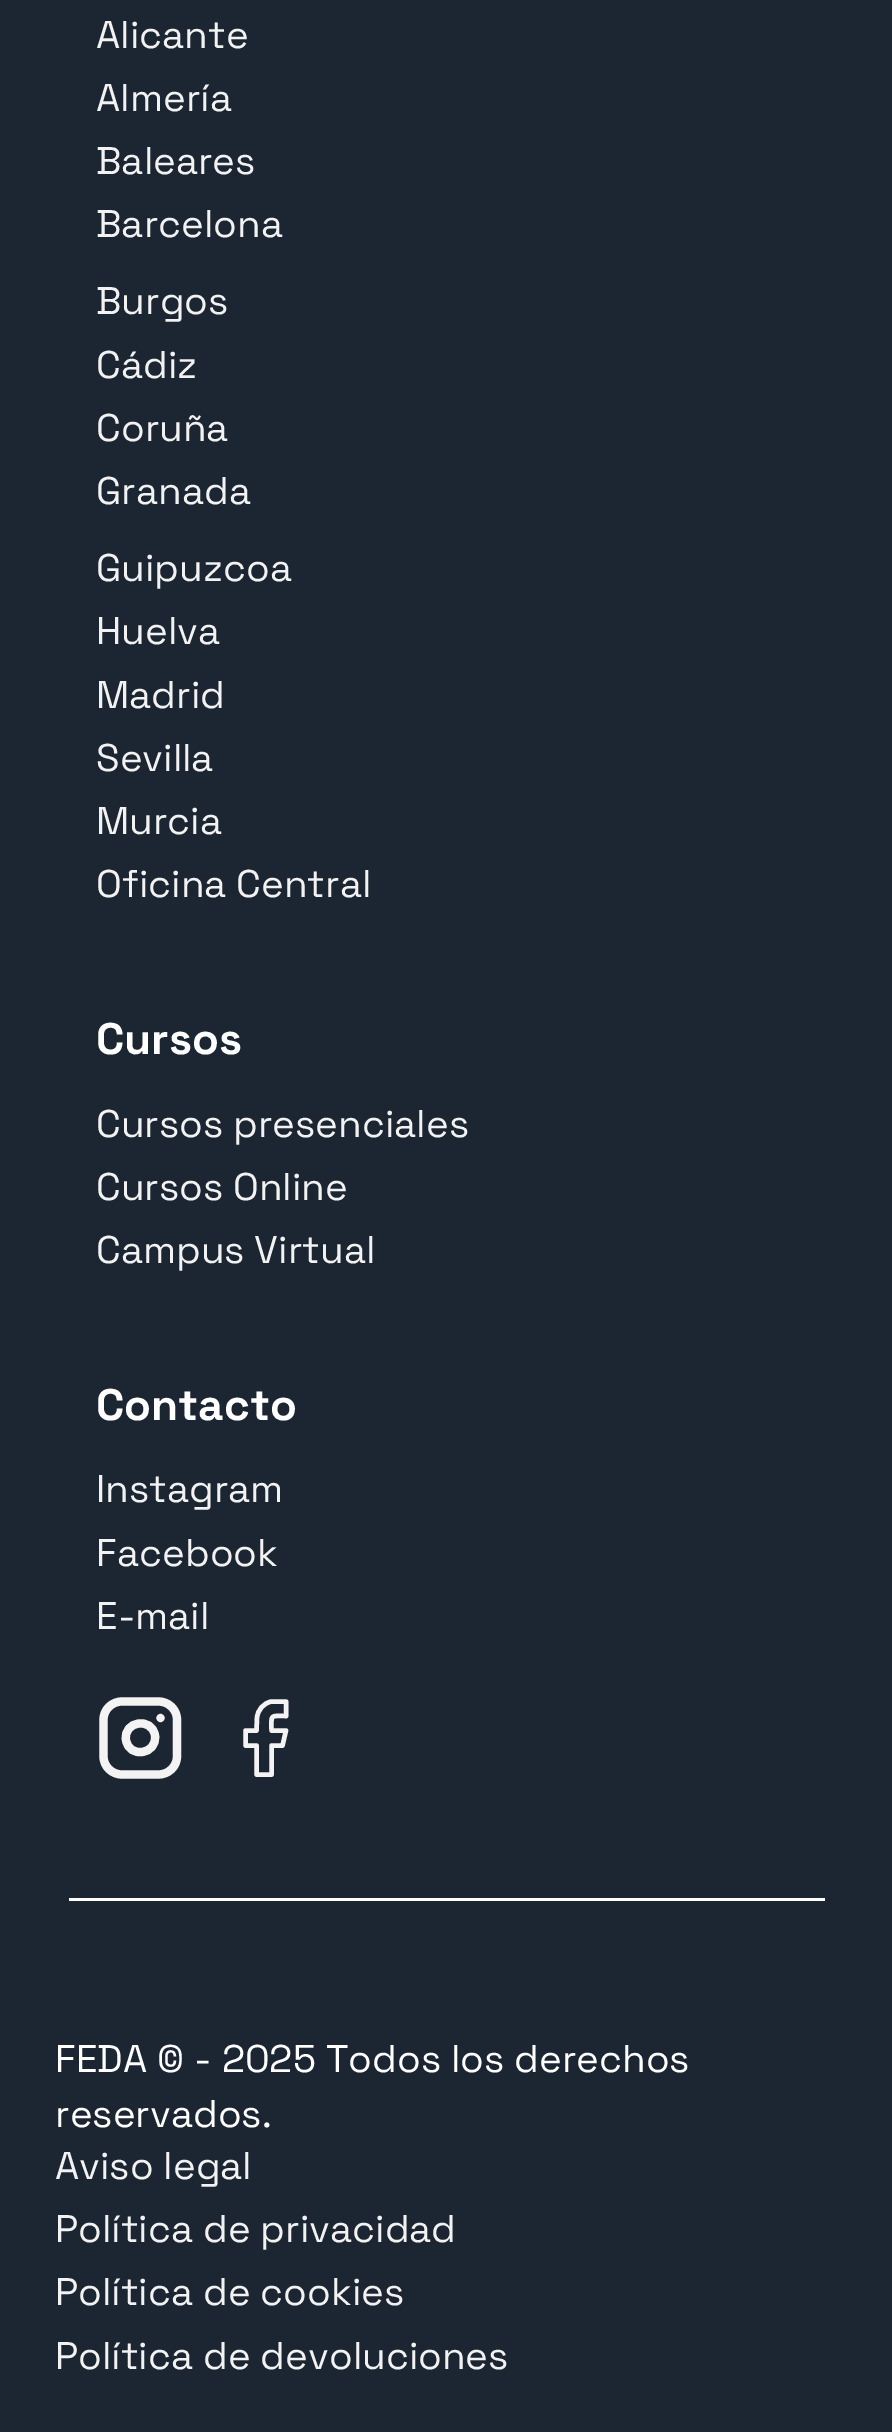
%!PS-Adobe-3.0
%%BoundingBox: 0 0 892 2432
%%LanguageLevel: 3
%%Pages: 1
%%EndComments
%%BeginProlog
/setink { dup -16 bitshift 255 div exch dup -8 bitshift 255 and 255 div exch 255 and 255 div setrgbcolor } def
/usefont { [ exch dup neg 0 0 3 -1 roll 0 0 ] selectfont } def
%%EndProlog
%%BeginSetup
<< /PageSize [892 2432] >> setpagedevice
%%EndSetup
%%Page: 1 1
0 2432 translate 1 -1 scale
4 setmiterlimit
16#1C2632 setink
0 0 892 2432 rectfill
/SpaceGrotesk-Regular 38.5 usefont
16#F2F2F2 setink
[
    [(Alicante) 96 48]
    [(Almería) 96 111]
    [(Baleares) 96 174]
    [(Barcelona) 96 237]
    [(Burgos) 96 314]
    [(Cádiz) 96 378]
    [(Coruña) 96 441]
    [(Granada) 96 504]
    [(Guipuzcoa) 96 581]
    [(Huelva) 96 644]
    [(Madrid) 96 708]
    [(Sevilla) 96 771]
    [(Murcia) 96 834]
    [(Oficina Central) 96 897]
] { aload pop moveto show } forall
/SpaceGrotesk-Bold 44 usefont
16#FFFFFF setink
96 1054 moveto (Cursos) show
/SpaceGrotesk-Regular 38.5 usefont
16#F2F2F2 setink
[
    [(Cursos presenciales) 96 1137]
    [(Cursos Online) 96 1200]
    [(Campus Virtual) 96 1263]
] { aload pop moveto show } forall
/SpaceGrotesk-Bold 44 usefont
16#FFFFFF setink
96 1420 moveto (Contacto) show
/SpaceGrotesk-Regular 38.5 usefont
16#F2F2F2 setink
[
    [(Instagram) 96 1502]
    [(Facebook) 96 1566]
    [(E-mail) 96 1629]
] { aload pop moveto show } forall
16#F3F3F3 setink
8.2 setlinewidth
1 setlinecap
1 setlinejoin
160.5 1718 moveto 160.5 1718 lineto 122 1701.5 moveto 158.5 1701.5 lineto 168.5 1701.5 177 1709.5 177 1719.5 curveto 177 1756.5 lineto 177 1766.5 168.5 1774.5 158.5 1774.5 curveto 122 1774.5 lineto 112 1774.5 103.5 1766.5 103.5 1756.5 curveto 103.5 1719.5 lineto 103.5 1709.5 112 1701.5 122 1701.5 curveto closepath 155 1735.5 moveto 157.5 1754.5 129 1759 126 1740 curveto 123 1721 152 1716.5 155 1735.5 curveto closepath stroke
4.5 setlinewidth
286 1701.5 moveto 271.5 1701.5 lineto 263.5 1703 257.5 1710 257 1718 curveto 256.5 1730.5 lineto 245.5 1730.5 lineto 245.5 1745.5 lineto 256.5 1745.5 lineto 256.5 1774.5 lineto 271.5 1774.5 lineto 271.5 1745.5 lineto 282.5 1745.5 lineto 286 1730.5 lineto 271.5 1730.5 lineto 271.5 1714 269.5 1716 286 1716 curveto closepath stroke
16#FFFFFF setink
69 1898 756 3 rectfill
55 2072 moveto (FEDA © - 2025 Todos los derechos) show
55 2127 moveto (reservados.) show
16#F2F2F2 setink
[
    [(Aviso legal) 55 2179]
    [(Política de privacidad) 55 2242]
    [(Política de cookies) 55 2305]
    [(Política de devoluciones) 55 2369]
] { aload pop moveto show } forall
showpage
%%EOF
